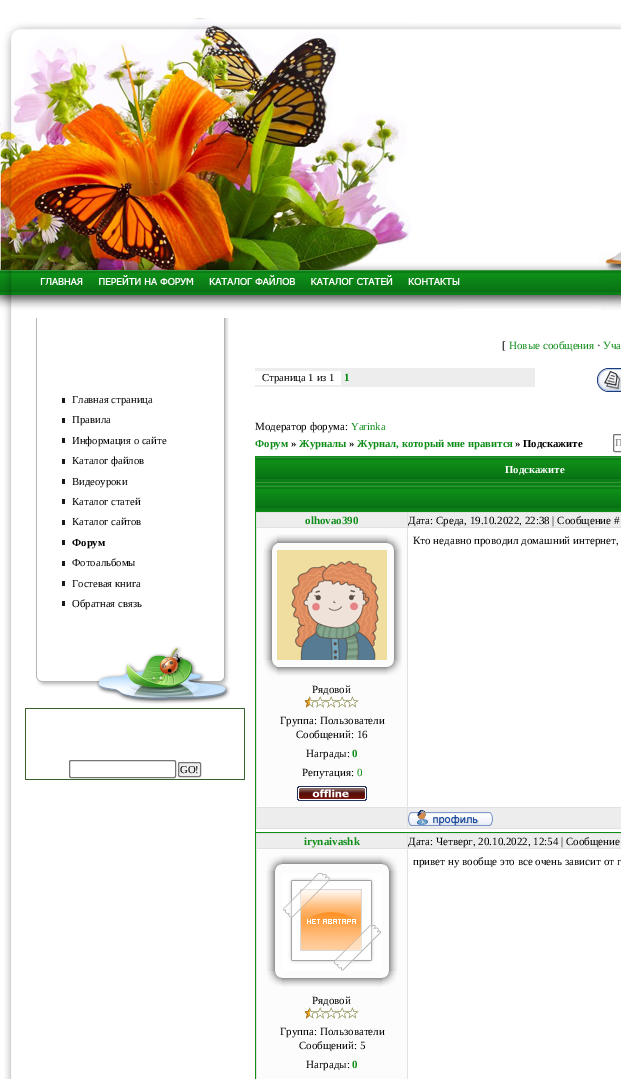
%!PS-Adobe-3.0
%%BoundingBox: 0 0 621 1079
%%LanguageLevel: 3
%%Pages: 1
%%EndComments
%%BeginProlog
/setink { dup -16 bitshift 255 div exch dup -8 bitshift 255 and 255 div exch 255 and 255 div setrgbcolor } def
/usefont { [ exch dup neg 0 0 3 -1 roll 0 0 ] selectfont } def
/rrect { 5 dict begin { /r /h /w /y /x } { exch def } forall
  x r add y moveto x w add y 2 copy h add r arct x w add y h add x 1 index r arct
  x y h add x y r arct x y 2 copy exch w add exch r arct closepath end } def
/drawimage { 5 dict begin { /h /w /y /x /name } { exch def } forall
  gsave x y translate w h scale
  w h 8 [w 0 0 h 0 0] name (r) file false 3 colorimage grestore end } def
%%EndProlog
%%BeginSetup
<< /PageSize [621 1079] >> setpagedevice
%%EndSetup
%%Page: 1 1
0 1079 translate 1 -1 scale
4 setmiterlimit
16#FFFFFF setink
0 0 621 1079 rectfill
(img1.raw) 411 23 210 286 drawimage
(img2.raw) 0 18 411 252 drawimage
(img3.raw) 599 252 22 58 drawimage
(img4.raw) 0 270 460 48 drawimage
(img5.raw) 4 318 8 761 drawimage
(img6.raw) 36 318 193 328 drawimage
(img7.raw) 36 646 195 62 drawimage
16#191919 setink
62 398 3 5 rectfill
/LiberationSerif-Regular 10.7 usefont
16#000000 setink
72 403 moveto (Главная страница) show
16#191919 setink
62 418 3 5 rectfill
16#000000 setink
72 423 moveto (Правила) show
16#191919 setink
62 438 3 5 rectfill
16#000000 setink
72 444 moveto (Информация о сайте) show
16#191919 setink
62 459 3 5 rectfill
16#000000 setink
72 464 moveto (Каталог файлов) show
16#191919 setink
62 479 3 5 rectfill
16#000000 setink
72 485 moveto (Видеоуроки) show
16#191919 setink
62 499 3 5 rectfill
16#000000 setink
72 505 moveto (Каталог статей) show
16#191919 setink
62 520 3 5 rectfill
16#000000 setink
72 525 moveto (Каталог сайтов) show
16#191919 setink
62 540 3 5 rectfill
/LiberationSerif-Bold 10.7 usefont
16#000000 setink
72 546 moveto (Форум) show
16#191919 setink
62 561 3 5 rectfill
/LiberationSerif-Regular 10.7 usefont
16#000000 setink
72 566 moveto (Фотоальбомы) show
16#191919 setink
62 581 3 5 rectfill
16#000000 setink
72 587 moveto (Гостевая книга) show
16#191919 setink
62 601 3 5 rectfill
16#000000 setink
72 607 moveto (Обратная связь) show
16#38612B setink
25 708 220 72 rectfill
16#FFFFFF setink
26 709 218 70 rectfill
16#767676 setink
69.5 760.5 106 17 1.5 rrect stroke
16#EFEFEF setink
178.5 762.5 22 14 1.5 rrect gsave fill grestore
16#767676 setink
stroke
16#000000 setink
180 773 moveto (GO!) show
/LiberationSerif-Regular 11 usefont
502 349 moveto ([) show
16#0E8D18 setink
509 349 moveto (Новые сообщения) show
16#000000 setink
597 349 moveto (·) show
16#0E8D18 setink
603 349 moveto (Уча) show
16#EDEDED setink
255 368 280 19 rectfill
16#FFFFFF setink
255 371 86 14 rectfill
/LiberationSerif-Regular 10.7 usefont
16#000000 setink
262 381 moveto (Страница 1 из 1) show
/LiberationSerif-Bold 11 usefont
16#0E8D18 setink
344 381 moveto (1) show
(img8.raw) 597 368 24 24 drawimage
/LiberationSerif-Regular 11 usefont
16#000000 setink
255 430 moveto (Модератор форума:) show
/LiberationSerif-Regular 10.7 usefont
16#0E8D18 setink
351 430 moveto (Yarinka) show
/LiberationSerif-Bold 10.7 usefont
255 447 moveto (Форум) show
16#000000 setink
291 447 moveto (») show
16#0E8D18 setink
299 447 moveto (Журналы) show
16#000000 setink
349 447 moveto (») show
16#0E8D18 setink
357 447 moveto (Журнал, который мне нравится) show
16#000000 setink
515 447 moveto (» Подскажите) show
16#767676 setink
613.5 434.5 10 17 1.5 rrect stroke
/LiberationSerif-Regular 10.7 usefont
16#757575 setink
615 446 moveto (П) show
16#0E8D18 setink
255 456 366 623 rectfill
(img9.raw) 256 457 365 28 drawimage
/LiberationSerif-Bold 10.7 usefont
16#FFFFFF setink
505 473 moveto (Подскажите) show
(img10.raw) 256 486 365 25 drawimage
[
    [256 829 365 3 16#FFFFFF]
    [256 512 365 317 16#E1E1E1]
    [257 513 150 14 16#EDEDED]
] { aload pop setink rectfill } forall
/LiberationSerif-Bold 11 usefont
16#0E8D18 setink
305 524 moveto (olhovao390) show
16#EDEDED setink
408 513 213 14 rectfill
/LiberationSerif-Regular 11 usefont
16#000000 setink
408 524 moveto (Дата: Среда, 19.10.2022, 22:38 | Сообщение #) show
16#FFFFFF setink
408 528 213 279 rectfill
16#000000 setink
413 544 moveto (Кто недавно проводил домашний интернет,) show
16#FCFCFC setink
257 528 150 279 rectfill
(img11.raw) 264 535 13 15 drawimage
(img12.raw) 277 534 110 9 drawimage
(img13.raw) 387 535 15 15 drawimage
(img14.raw) 263 550 9 110 drawimage
(img15.raw) 277 550 110 110 drawimage
(img16.raw) 394 550 8 110 drawimage
(img17.raw) 264 660 13 15 drawimage
(img18.raw) 277 667 110 9 drawimage
(img19.raw) 387 660 15 15 drawimage
16#000000 setink
312 693 moveto (Рядовой) show
(img20.raw) 304 696 55 12 drawimage
[
    [(Группа: Пользователи) 280 724]
    [(Сообщений: 16) 296 738]
    [(Награды:) 306 757]
] { aload pop moveto show } forall
/LiberationSerif-Bold 11 usefont
16#0E8D18 setink
352 757 moveto (0) show
/LiberationSerif-Regular 11 usefont
16#000000 setink
302 776 moveto (Репутация:) show
16#0E8D18 setink
357 776 moveto (0) show
(img21.raw) 297 786 70 15 drawimage
16#EDEDED setink
257 808 150 20 rectfill
408 808 213 20 rectfill
(img22.raw) 408 810 85 16 drawimage
16#E1E1E1 setink
256 833 365 246 rectfill
16#EDEDED setink
257 834 150 14 rectfill
/LiberationSerif-Bold 11 usefont
16#0E8D18 setink
304 845 moveto (irynaivashk) show
16#EDEDED setink
408 834 213 14 rectfill
/LiberationSerif-Regular 11 usefont
16#000000 setink
408 845 moveto (Дата: Четверг, 20.10.2022, 12:54 | Сообщение) show
16#FFFFFF setink
408 849 213 230 rectfill
16#000000 setink
413 865 moveto (привет ну вообще это все очень зависит от г) show
16#FCFCFC setink
257 849 150 230 rectfill
(img23.raw) 267 856 15 15 drawimage
(img24.raw) 282 855 100 9 drawimage
(img25.raw) 382 856 15 15 drawimage
(img26.raw) 266 871 9 100 drawimage
(img27.raw) 282 873 100 98 drawimage
(img28.raw) 389 871 9 100 drawimage
(img29.raw) 267 971 15 15 drawimage
(img30.raw) 282 978 100 9 drawimage
(img31.raw) 382 971 15 15 drawimage
16#000000 setink
312 1004 moveto (Рядовой) show
(img20.raw) 304 1007 55 12 drawimage
[
    [(Группа: Пользователи) 280 1035]
    [(Сообщений: 5) 299 1049]
    [(Награды:) 306 1068]
] { aload pop moveto show } forall
/LiberationSerif-Bold 11 usefont
16#0E8D18 setink
352 1068 moveto (0) show
showpage
%%EOF
